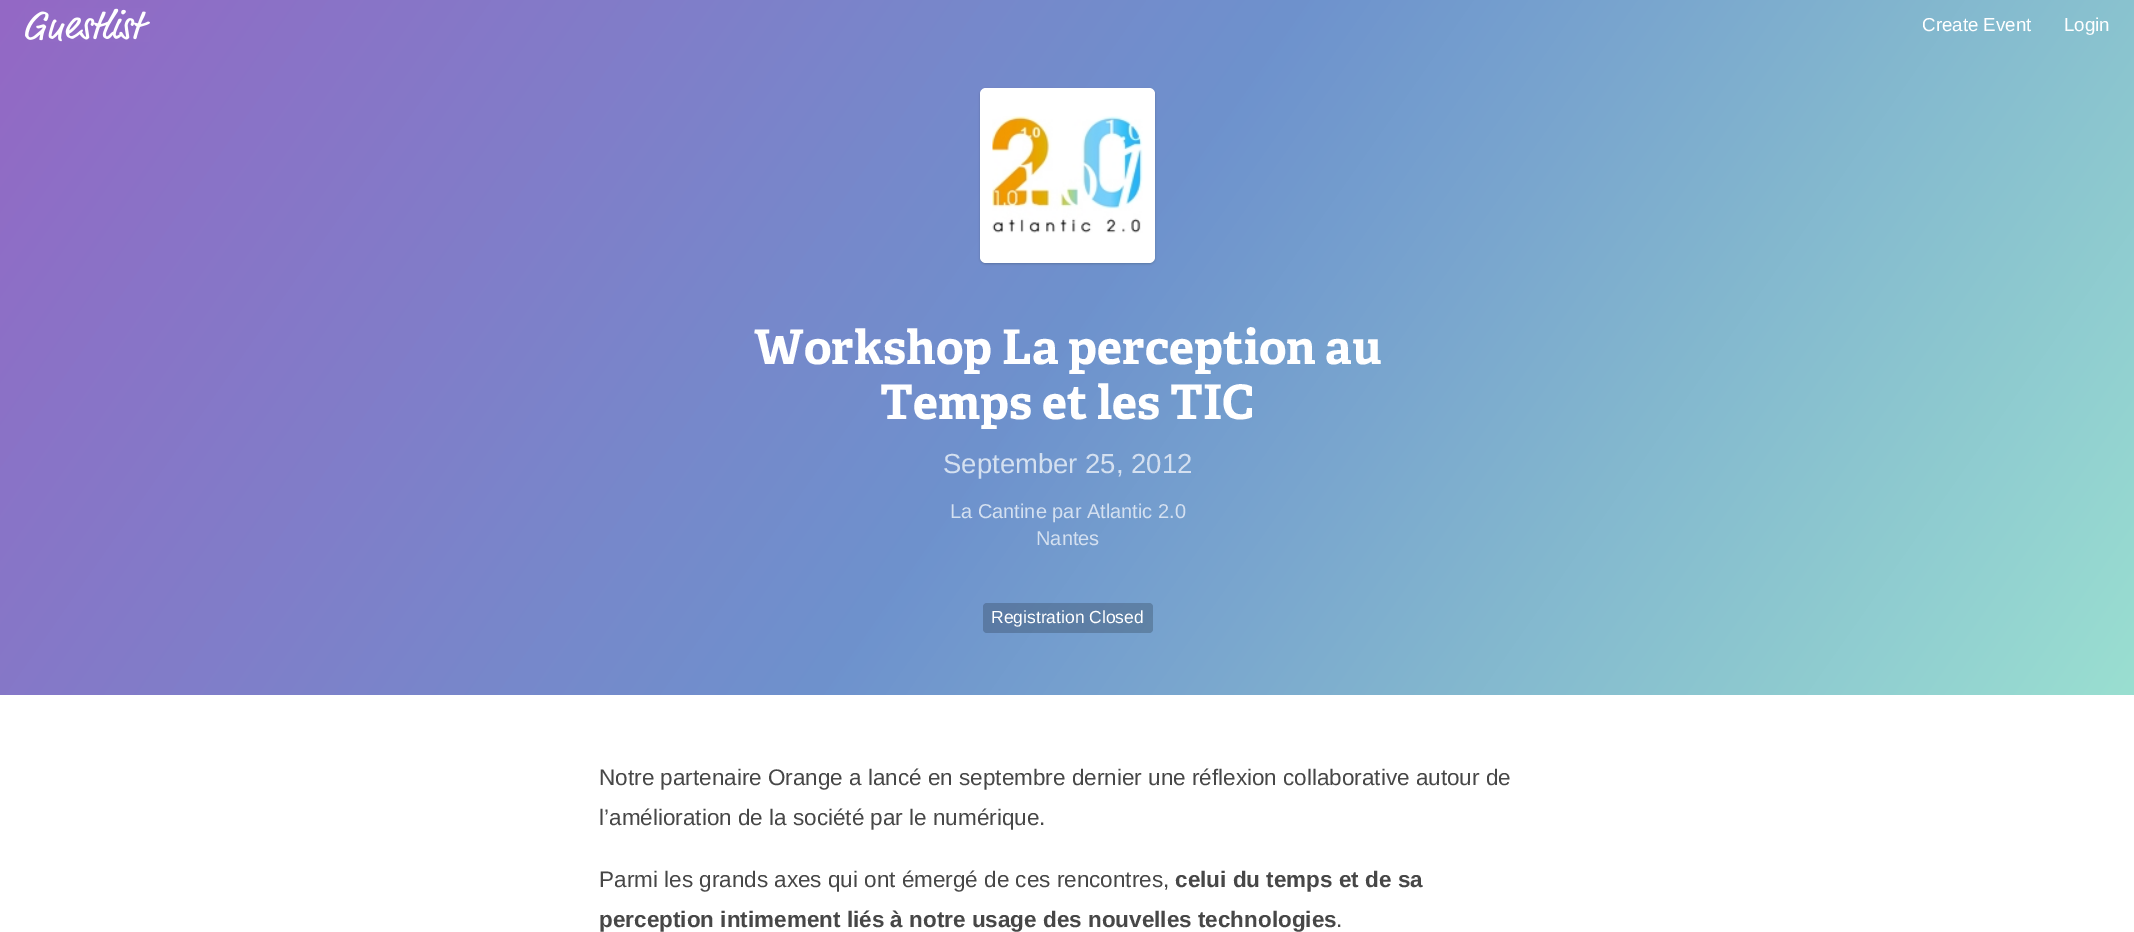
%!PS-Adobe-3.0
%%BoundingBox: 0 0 2134 932
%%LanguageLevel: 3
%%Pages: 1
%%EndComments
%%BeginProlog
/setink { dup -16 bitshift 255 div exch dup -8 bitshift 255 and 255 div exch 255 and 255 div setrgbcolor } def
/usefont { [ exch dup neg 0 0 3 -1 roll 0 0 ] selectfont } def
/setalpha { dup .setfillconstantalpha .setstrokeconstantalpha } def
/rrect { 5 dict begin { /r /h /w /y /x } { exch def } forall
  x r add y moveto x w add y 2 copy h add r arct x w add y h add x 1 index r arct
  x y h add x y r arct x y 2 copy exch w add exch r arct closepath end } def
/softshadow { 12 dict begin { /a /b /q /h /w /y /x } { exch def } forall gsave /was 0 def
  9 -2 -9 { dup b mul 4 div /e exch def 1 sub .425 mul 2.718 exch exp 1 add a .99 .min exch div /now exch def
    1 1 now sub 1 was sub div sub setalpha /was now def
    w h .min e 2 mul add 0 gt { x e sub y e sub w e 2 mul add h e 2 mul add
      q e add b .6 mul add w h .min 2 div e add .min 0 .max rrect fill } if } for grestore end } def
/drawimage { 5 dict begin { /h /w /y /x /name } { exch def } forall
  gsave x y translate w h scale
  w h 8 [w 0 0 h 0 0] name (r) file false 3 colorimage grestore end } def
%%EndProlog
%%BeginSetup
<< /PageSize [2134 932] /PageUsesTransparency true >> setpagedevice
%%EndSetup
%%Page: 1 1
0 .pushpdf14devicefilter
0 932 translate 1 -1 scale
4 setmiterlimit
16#FFFFFF setink
0 0 2134 932 rectfill
gsave 0 0 moveto 2134 0 lineto 2134 695 lineto 0 695 lineto closepath clip newpath
<< /ShadingType 2 /ColorSpace /DeviceRGB /Coords [188 -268 1947 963] /Extend [true true] /Function << /FunctionType 3 /Domain [0 1] /Functions [<< /FunctionType 2 /Domain [0 1] /C0 [0.58 0.408 0.773] /C1 [0.431 0.573 0.804] /N 1 >> << /FunctionType 2 /Domain [0 1] /C0 [0.431 0.573 0.804] /C1 [0.604 0.875 0.82] /N 1 >>] /Bounds [0.5] /Encode [0 1 0 1] >> >> shfill grestore
(img1.raw) 25 8 125 34 drawimage
/LiberationSans-Regular 18.75 usefont
1922 31 moveto (Create Event) show
2064 31 moveto (Login) show
16#000000 setink
980 89 175 175 6 1 0.2 softshadow
16#FFFFFF setink
980 88 175 175 6 rrect fill
(img2.raw) 992 116 151 117 drawimage
/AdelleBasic-Bold 47.5 usefont
754 364 moveto (Workshop La perception au) show
880 419 moveto (Temps et les TIC) show
/LiberationSans-Regular 27.5 usefont
16#D4E0F0 setink
943 473 moveto (September 25, 2012) show
/LiberationSans-Regular 20 usefont
950 518 moveto (La Cantine par Atlantic 2.0) show
1036 545 moveto (Nantes) show
0.2 setalpha
16#000000 setink
983 603 170 30 4 rrect fill
/LiberationSans-Regular 17.5 usefont
1 setalpha
16#FFFFFF setink
991 623 moveto (Registration Closed) show
/LiberationSans-Regular 22.5 usefont
16#474747 setink
[
    [(Notre partenaire Orange a lancé en septembre dernier une réflexion collaborative autour de) 599 785]
    [(l’amélioration de la société par le numérique.) 599 825]
    [(Parmi les grands axes qui ont émergé de ces rencontres,) 599 887]
] { aload pop moveto show } forall
/LiberationSans-Bold 22.5 usefont
1175 887 moveto (celui du temps et de sa) show
599 927 moveto (perception intimement liés à notre usage des nouvelles technologies) show
/LiberationSans-Regular 22.5 usefont
1336 927 moveto (.) show
.poppdf14devicefilter showpage
%%EOF
